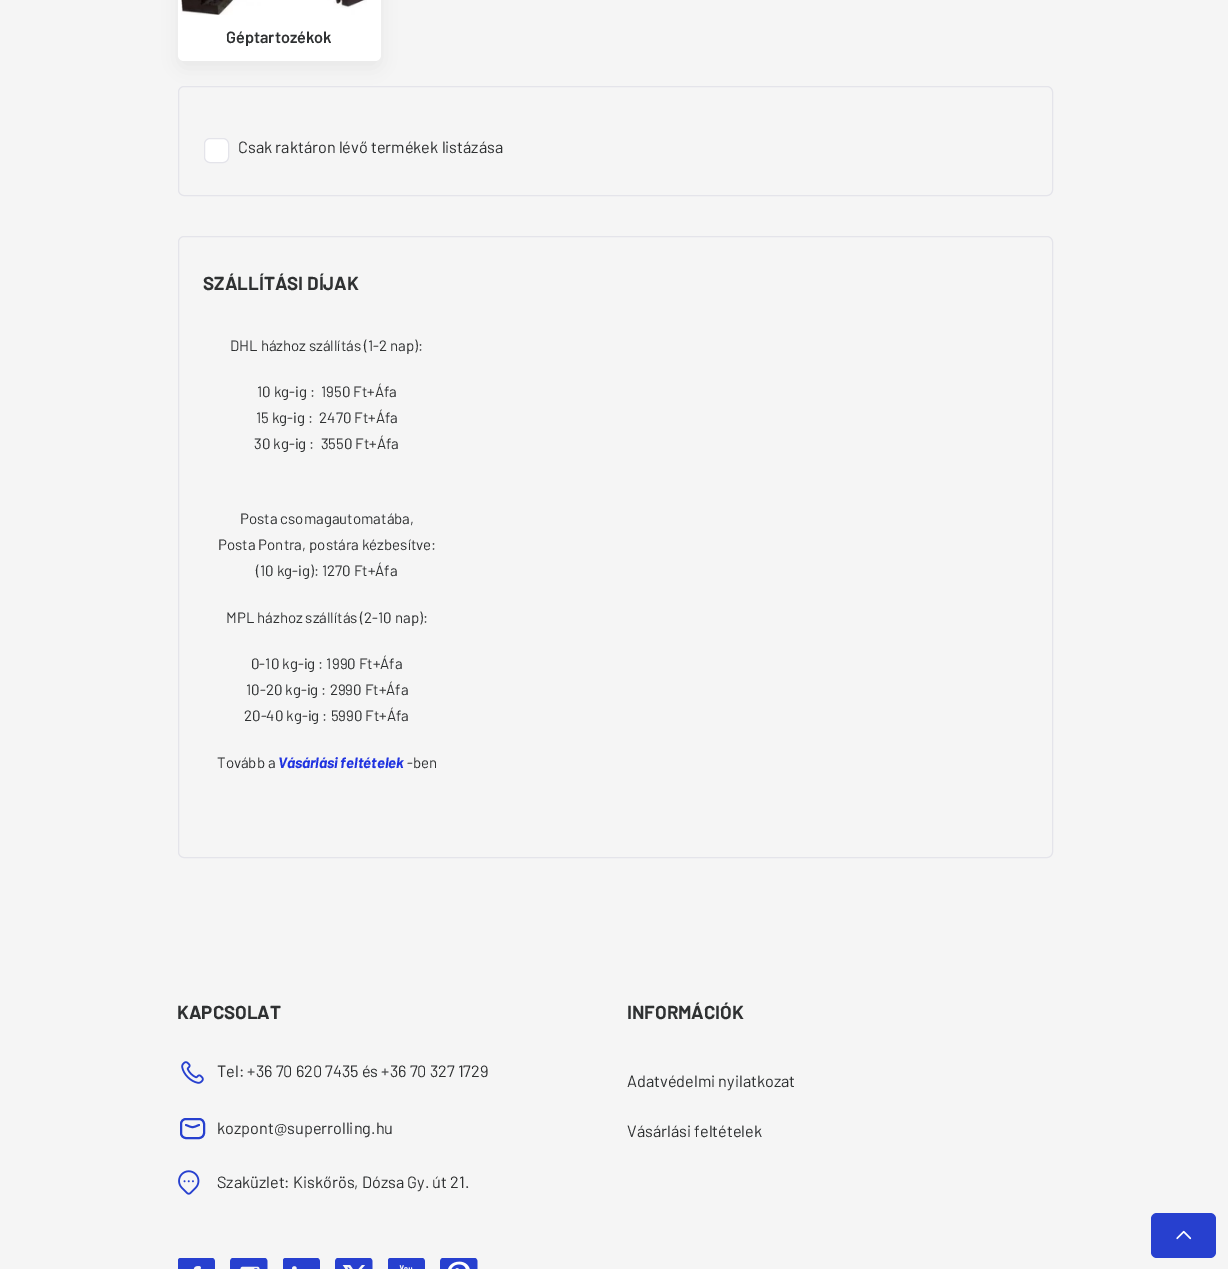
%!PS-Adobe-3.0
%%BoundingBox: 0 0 1228 1269
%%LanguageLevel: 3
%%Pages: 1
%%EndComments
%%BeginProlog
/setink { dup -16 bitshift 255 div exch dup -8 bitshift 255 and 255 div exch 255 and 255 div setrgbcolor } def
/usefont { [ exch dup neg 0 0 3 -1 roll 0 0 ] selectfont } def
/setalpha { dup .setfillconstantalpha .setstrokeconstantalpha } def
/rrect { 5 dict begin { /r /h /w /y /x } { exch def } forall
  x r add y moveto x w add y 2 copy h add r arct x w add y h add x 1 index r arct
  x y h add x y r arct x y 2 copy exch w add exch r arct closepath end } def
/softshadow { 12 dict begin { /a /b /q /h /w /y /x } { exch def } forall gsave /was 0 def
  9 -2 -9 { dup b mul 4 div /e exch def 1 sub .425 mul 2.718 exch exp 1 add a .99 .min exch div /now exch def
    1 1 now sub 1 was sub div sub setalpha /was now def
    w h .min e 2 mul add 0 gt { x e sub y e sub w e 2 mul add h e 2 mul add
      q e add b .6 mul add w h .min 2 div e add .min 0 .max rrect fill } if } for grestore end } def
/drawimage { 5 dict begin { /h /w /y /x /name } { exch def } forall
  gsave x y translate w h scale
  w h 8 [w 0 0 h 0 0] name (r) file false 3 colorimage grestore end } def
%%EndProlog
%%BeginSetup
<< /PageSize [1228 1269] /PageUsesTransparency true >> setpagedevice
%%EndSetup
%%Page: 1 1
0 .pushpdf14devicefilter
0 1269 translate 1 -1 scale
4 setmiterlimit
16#F5F5F5 setink
0 0 1228 1269 rectfill
16#000000 setink
178 -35 203 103 6 9.5 0.05 softshadow
16#FFFFFF setink
178 -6 203 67 6 rrect fill
(img1.raw) 181 0 186 15 drawimage
/Barlow-SemiBold 16.25 usefont
16#2F3132 setink
226 43 moveto (Géptartozékok) show
16#E4E4EA setink
178.5 86.5 874 109 5.5 rrect stroke
16#FFFFFF setink
204.5 138.5 24 24 5.5 rrect gsave fill grestore
16#E4E4EA setink
stroke
/Barlow-Regular 16.25 usefont
16#2F3132 setink
238 153 moveto (Csak raktáron lévő termékek listázása) show
16#E4E4EA setink
178.5 236.5 874 621 5.5 rrect stroke
/Barlow-Bold 18.75 usefont
16#2F3132 setink
203 290 moveto (SZÁLLÍTÁSI DÍJAK) show
/Barlow-Regular 15 usefont
[
    [(DHL házhoz szállítás \(1-2 nap\):) 230 351]
    [(10 kg-ig :  1950 Ft+Áfa) 257 397]
    [(15 kg-ig :  2470 Ft+Áfa) 256 423]
    [(30 kg-ig :  3550 Ft+Áfa) 254 449]
    [(Posta csomagautomatába,) 240 524]
    [(Posta Pontra, postára kézbesítve:) 218 550]
    [(\(10 kg-ig\): 1270 Ft+Áfa) 256 576]
    [(MPL házhoz szállítás \(2-10 nap\):) 226 623]
    [(0-10 kg-ig : 1990 Ft+Áfa) 251 669]
    [(10-20 kg-ig : 2990 Ft+Áfa) 246 695]
    [(20-40 kg-ig : 5990 Ft+Áfa) 244 721]
    [(Tovább a) 217 768]
] { aload pop moveto show } forall
/Barlow-BoldItalic 15 usefont
16#2033E0 setink
278 768 moveto (Vásárlási feltételek) show
/Barlow-Regular 15 usefont
16#2F3132 setink
407 768 moveto (-ben) show
/Barlow-Bold 18.75 usefont
177 1019 moveto (KAPCSOLAT) show
(img2.raw) 181 1061 23 23 drawimage
/Barlow-Regular 16.25 usefont
217 1077 moveto (Tel: +36 70 620 7435 és +36 70 327 1729) show
16#2740CF setink
2 setlinewidth
181 1119 23 19 5 rrect stroke
1.9 setlinewidth
1 setlinecap
1 setlinejoin
186 1125 moveto 193.5 1128 191.5 1128 199 1125 curveto stroke
16#2F3132 setink
217 1134 moveto (kozpont@superrolling.hu) show
(img3.raw) 178 1170 22 25 drawimage
217 1188 moveto (Szaküzlet: Kiskőrös, Dózsa Gy. út 21.) show
(img4.raw) 178 1258 37 11 drawimage
(img5.raw) 230 1258 38 11 drawimage
(img6.raw) 283 1258 37 11 drawimage
(img7.raw) 335 1258 38 11 drawimage
(img8.raw) 388 1258 37 11 drawimage
(img9.raw) 440 1258 38 11 drawimage
/Barlow-Bold 18.75 usefont
627 1019 moveto (INFORMÁCIÓK) show
/Barlow-Regular 16.25 usefont
627 1087 moveto (Adatvédelmi nyilatkozat) show
627 1137 moveto (Vásárlási feltételek) show
16#2740CF setink
1151 1213 65 45 6 rrect fill
(img10.raw) 1176 1230 16 10 drawimage
.poppdf14devicefilter showpage
%%EOF
